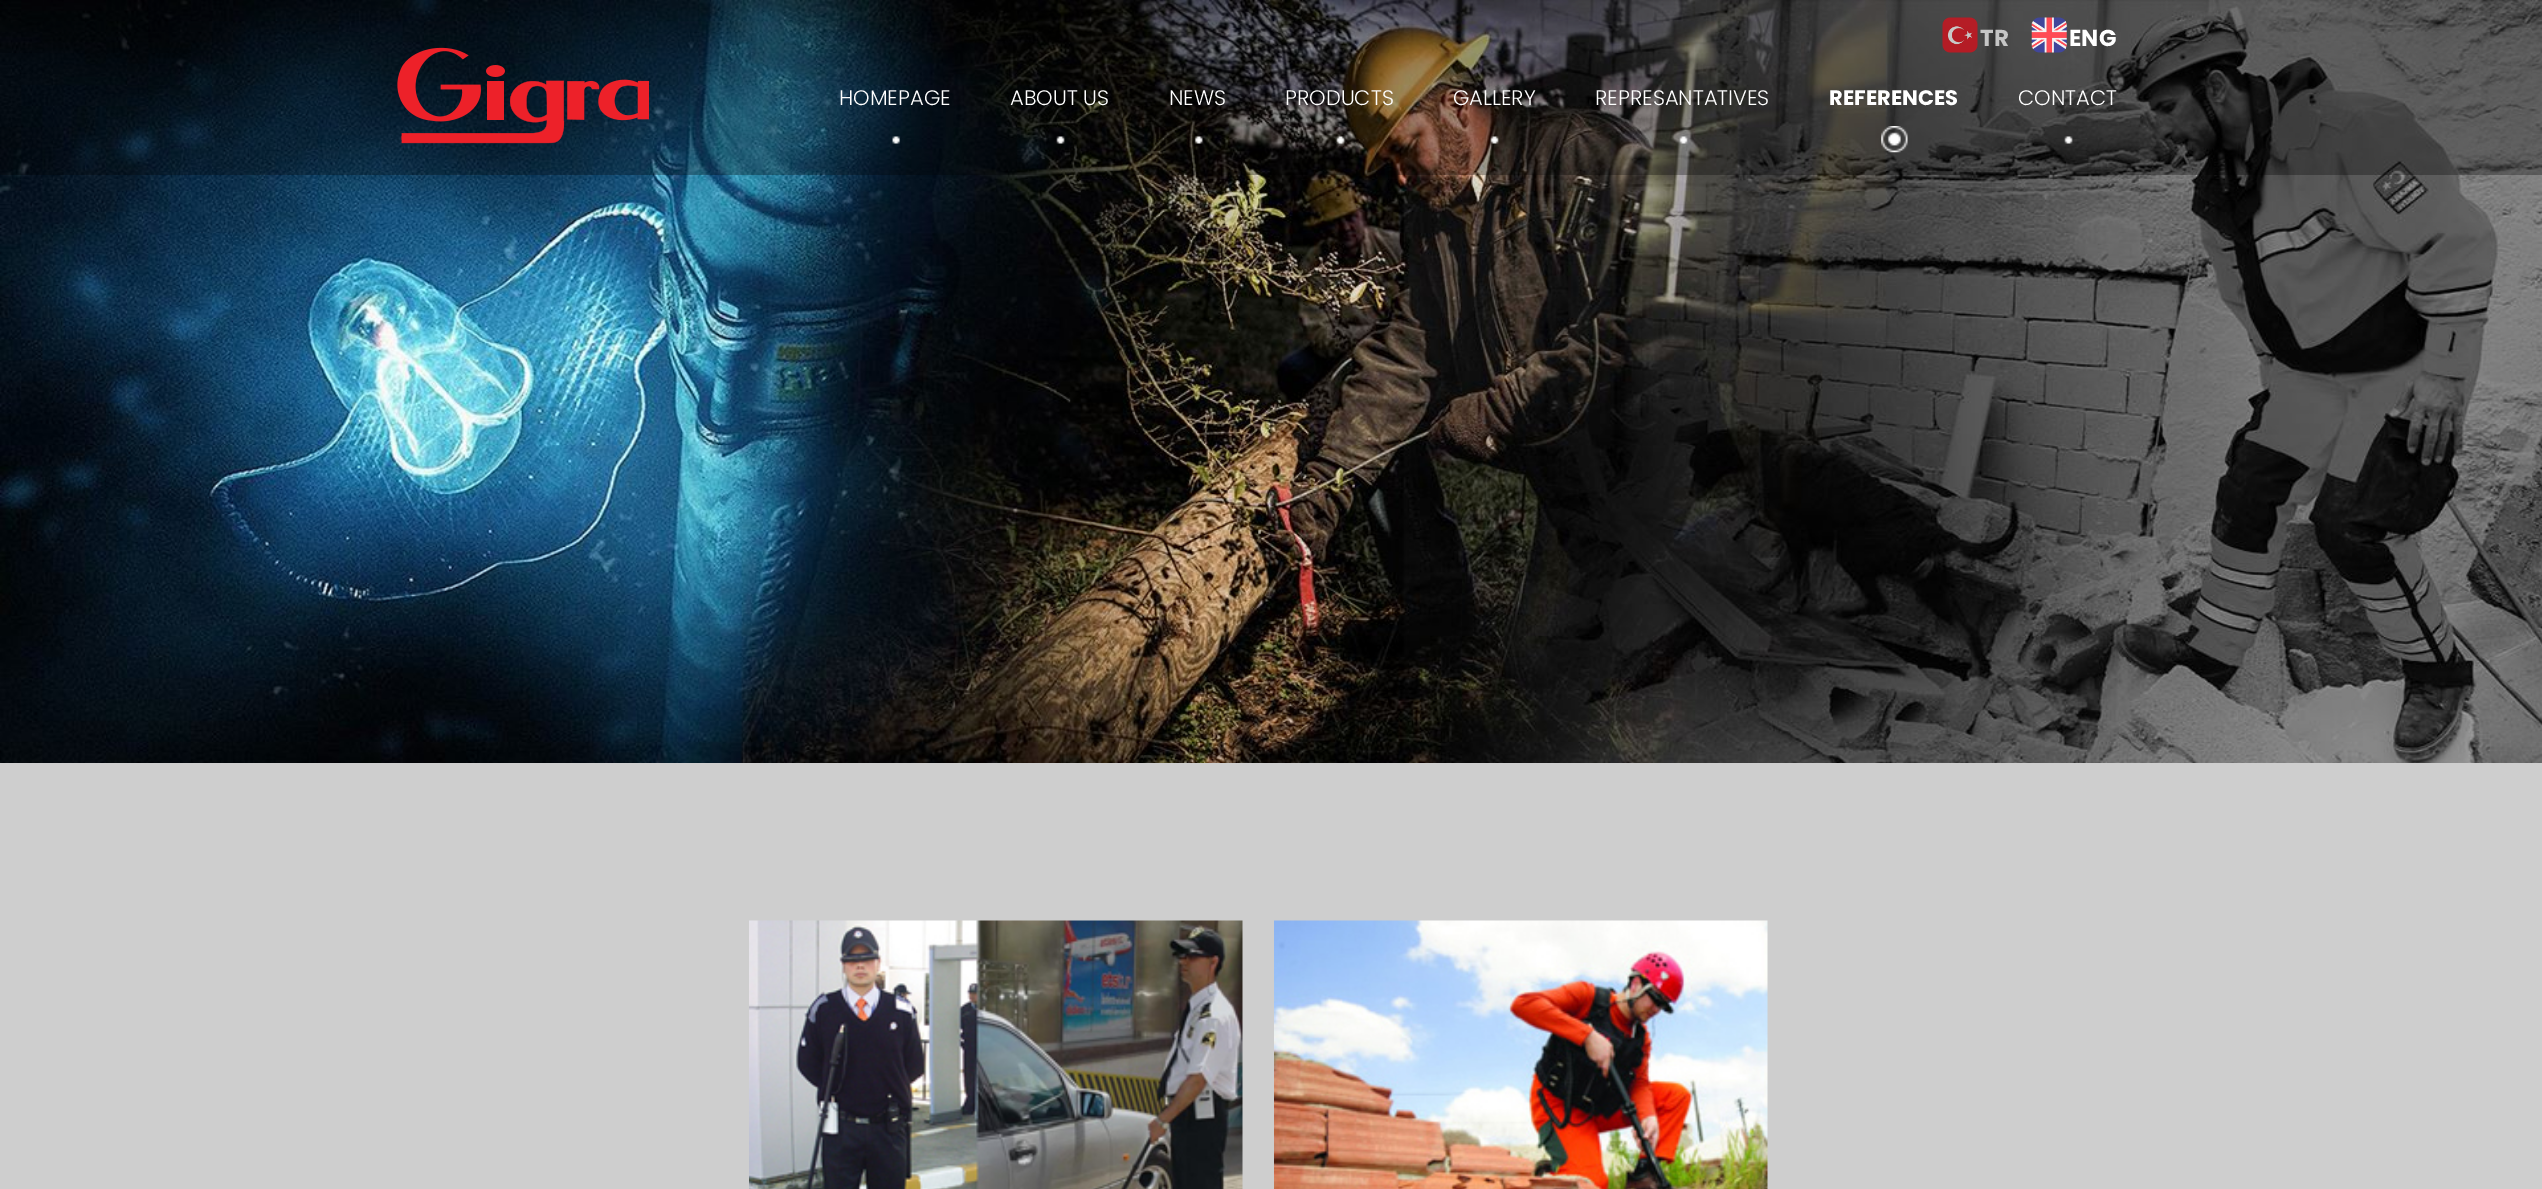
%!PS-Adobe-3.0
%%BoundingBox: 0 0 2542 1189
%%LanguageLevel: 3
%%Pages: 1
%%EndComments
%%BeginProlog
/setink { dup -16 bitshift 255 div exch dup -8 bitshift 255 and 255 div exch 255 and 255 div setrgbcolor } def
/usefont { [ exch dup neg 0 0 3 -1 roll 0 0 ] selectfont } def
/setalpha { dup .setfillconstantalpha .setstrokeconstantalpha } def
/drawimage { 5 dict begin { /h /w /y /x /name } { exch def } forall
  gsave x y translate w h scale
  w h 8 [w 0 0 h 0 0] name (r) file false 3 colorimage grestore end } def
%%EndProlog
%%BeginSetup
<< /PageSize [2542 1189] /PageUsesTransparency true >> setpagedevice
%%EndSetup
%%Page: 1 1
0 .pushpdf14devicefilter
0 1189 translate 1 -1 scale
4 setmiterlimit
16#CECECE setink
0 0 2542 1189 rectfill
(img1.raw) 0 0 2542 763 drawimage
0.3 setalpha
16#000000 setink
0 0 2542 175 rectfill
1 setalpha
(img2.raw) 1942 17 36 36 drawimage
/Poppins-Bold 23 usefont
16#C6C6C6 setink
1980 46 moveto (TR) show
(img3.raw) 2031 17 36 36 drawimage
16#FFFFFF setink
2069 46 moveto (ENG) show
(img4.raw) 397 47 252 97 drawimage
/Poppins-Light 21 usefont
839 105 moveto (HOMEPAGE) show
(img5.raw) 892 136 8 8 drawimage
1010 105 moveto (ABOUT US) show
(img6.raw) 1056 136 9 8 drawimage
1169 105 moveto (NEWS) show
(img7.raw) 1194 136 9 8 drawimage
1285 105 moveto (PRODUCTS) show
(img8.raw) 1336 136 9 8 drawimage
1453 105 moveto (GALLERY) show
(img9.raw) 1490 136 9 8 drawimage
1595 105 moveto (REPRESANTATIVES) show
(img10.raw) 1679 136 9 8 drawimage
/Poppins-Bold 21 usefont
1829 105 moveto (REFERENCES) show
(img11.raw) 1881 126 27 27 drawimage
/Poppins-Light 21 usefont
2018 105 moveto (CONTACT) show
(img12.raw) 2064 136 9 8 drawimage
(img13.raw) 749 920 494 269 drawimage
(img14.raw) 1274 920 494 269 drawimage
.poppdf14devicefilter showpage
%%EOF
